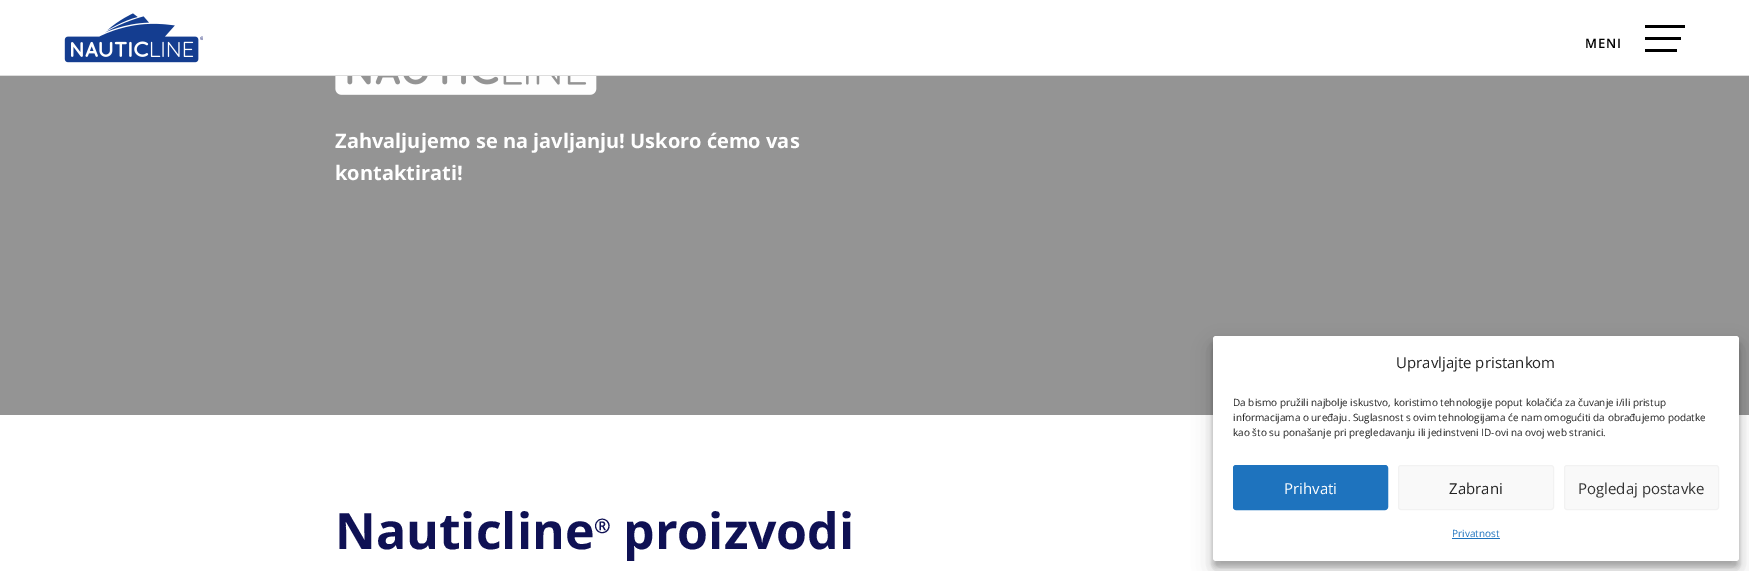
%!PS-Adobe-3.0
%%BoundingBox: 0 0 1749 571
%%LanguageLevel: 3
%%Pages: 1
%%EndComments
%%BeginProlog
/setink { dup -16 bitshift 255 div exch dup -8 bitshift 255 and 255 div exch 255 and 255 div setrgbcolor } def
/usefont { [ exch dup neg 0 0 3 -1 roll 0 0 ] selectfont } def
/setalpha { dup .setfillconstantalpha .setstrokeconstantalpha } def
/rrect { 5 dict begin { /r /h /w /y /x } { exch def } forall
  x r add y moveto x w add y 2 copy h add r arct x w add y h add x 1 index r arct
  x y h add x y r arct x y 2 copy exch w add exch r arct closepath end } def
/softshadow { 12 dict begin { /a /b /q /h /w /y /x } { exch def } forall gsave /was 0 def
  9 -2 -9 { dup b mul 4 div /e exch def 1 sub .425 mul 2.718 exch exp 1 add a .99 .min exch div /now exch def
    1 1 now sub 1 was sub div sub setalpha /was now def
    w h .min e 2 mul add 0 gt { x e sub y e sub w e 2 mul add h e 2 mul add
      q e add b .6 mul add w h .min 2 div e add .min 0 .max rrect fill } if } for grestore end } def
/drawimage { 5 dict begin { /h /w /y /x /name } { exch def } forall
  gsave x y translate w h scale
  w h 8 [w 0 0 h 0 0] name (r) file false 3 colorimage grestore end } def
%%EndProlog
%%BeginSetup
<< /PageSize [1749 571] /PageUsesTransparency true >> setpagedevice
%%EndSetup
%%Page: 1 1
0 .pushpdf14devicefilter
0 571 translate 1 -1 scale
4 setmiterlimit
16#FFFFFF setink
0 0 1749 571 rectfill
16#DDDDDD setink
0 75 1749 1 rectfill
(img1.raw) 64 13 139 50 drawimage
/OpenSans-SemiBold 13 usefont
16#000000 setink
1585 48 moveto 1 0 (MENI) ashow
[
    [1645 25 40 3 16#000000]
    [1645 37 36 3 16#000000]
    [1645 49 32 3 16#000000]
    [0 76 1749 339 16#949494]
] { aload pop setink rectfill } forall
(img2.raw) 335 76 262 19 drawimage
/OpenSans-Bold 20 usefont
16#FFFFFF setink
335 148 moveto (Zahvaljujemo se na javljanju! Uskoro ćemo vas) show
335 180 moveto (kontaktirati!) show
/OpenSans-Bold 50 usefont
16#0F1154 setink
335 549 moveto (Nauticline) show
/OpenSans-Bold 20 usefont
594 533 moveto (®) show
/OpenSans-Bold 50 usefont
623 549 moveto (proizvodi) show
16#000000 setink
1213 342 526 225 3 3 0.23 softshadow
1213 346 526 225 3 10 0.19 softshadow
16#FFFFFF setink
1213 336 526 225 3 rrect fill
/OpenSans-Regular 15 usefont
16#222222 setink
1396 368 moveto (Upravljajte pristankom) show
/OpenSans-Regular 10 usefont
[
    [(Da bismo pružili najbolje iskustvo, koristimo tehnologije poput kolačića za čuvanje i/ili pristup) 1233 406]
    [(informacijama o uređaju. Suglasnost s ovim tehnologijama će nam omogućiti da obrađujemo podatke) 1233 421]
    [(kao što su ponašanje pri pregledavanju ili jedinstveni ID-ovi na ovoj web stranici.) 1233 436]
] { aload pop moveto show } forall
16#1E73BE setink
1233.5 465.5 154 44 2.5 rrect gsave fill grestore
stroke
/OpenSans-Regular 15 usefont
16#FFFFFF setink
1284 494 moveto (Prihvati) show
16#F9F9F9 setink
1398.5 465.5 155 44 2.5 rrect gsave fill grestore
16#F2F2F2 setink
stroke
16#222222 setink
1449 494 moveto (Zabrani) show
16#F9F9F9 setink
1564.5 465.5 154 44 2.5 rrect gsave fill grestore
16#F2F2F2 setink
stroke
16#333333 setink
1578 494 moveto (Pogledaj postavke) show
/OpenSans-Regular 10 usefont
16#1E73BE setink
1452 537 moveto (Privatnost) show
1452 538 48 1 rectfill
.poppdf14devicefilter showpage
%%EOF
